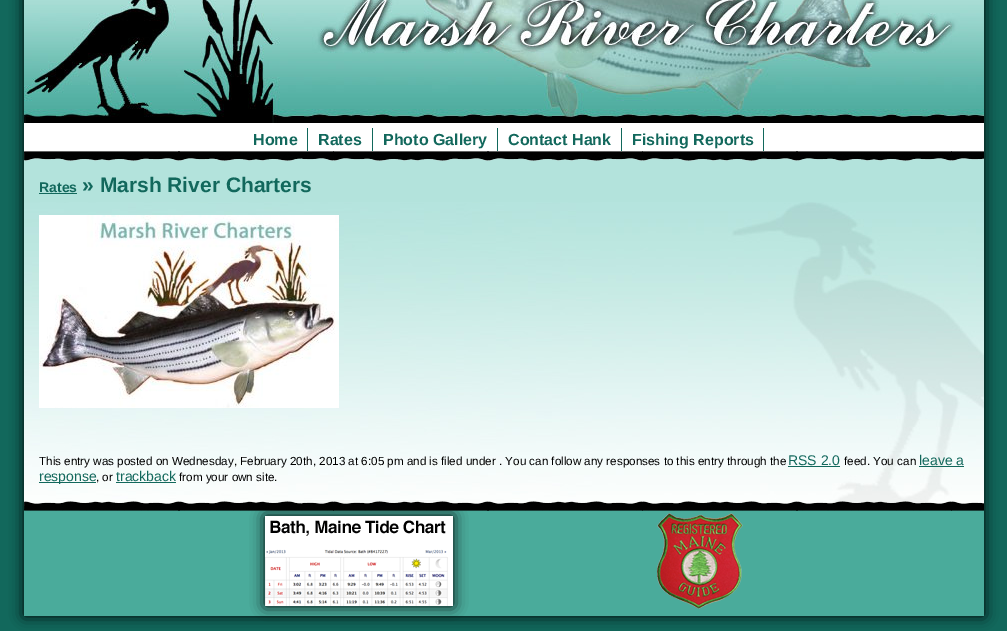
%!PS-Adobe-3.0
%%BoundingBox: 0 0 1007 631
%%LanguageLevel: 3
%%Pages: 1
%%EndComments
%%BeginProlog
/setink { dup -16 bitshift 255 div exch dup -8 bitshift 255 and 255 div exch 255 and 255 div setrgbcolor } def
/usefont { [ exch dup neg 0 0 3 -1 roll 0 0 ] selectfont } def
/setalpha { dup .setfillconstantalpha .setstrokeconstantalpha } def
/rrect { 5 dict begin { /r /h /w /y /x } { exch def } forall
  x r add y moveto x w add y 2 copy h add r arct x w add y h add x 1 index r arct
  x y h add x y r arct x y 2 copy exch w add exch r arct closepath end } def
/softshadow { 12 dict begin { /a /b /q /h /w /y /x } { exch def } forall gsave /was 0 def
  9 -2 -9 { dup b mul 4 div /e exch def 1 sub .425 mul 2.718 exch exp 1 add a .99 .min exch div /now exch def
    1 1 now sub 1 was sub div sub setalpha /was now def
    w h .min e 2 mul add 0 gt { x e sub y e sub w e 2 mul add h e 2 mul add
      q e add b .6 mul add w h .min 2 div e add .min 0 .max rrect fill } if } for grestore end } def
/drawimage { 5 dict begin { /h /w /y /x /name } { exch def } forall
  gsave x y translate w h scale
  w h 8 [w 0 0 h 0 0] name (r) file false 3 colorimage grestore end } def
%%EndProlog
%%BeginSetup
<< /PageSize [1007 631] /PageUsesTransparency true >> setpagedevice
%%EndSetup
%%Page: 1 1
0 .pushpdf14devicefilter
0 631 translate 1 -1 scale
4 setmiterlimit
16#12685C setink
0 0 1007 631 rectfill
16#000000 setink
24 -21 960 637 0 7 1 softshadow
(img1.raw) 24 0 960 123 drawimage
16#FFFFFF setink
24 123 960 33 rectfill
16#12685C setink
307 128 1 23 rectfill
/LiberationSans-Bold 16 usefont
253 145 moveto (Home) show
372 128 1 23 rectfill
318 145 moveto (Rates) show
497 128 1 23 rectfill
383 145 moveto (Photo Gallery) show
621 128 1 23 rectfill
508 145 moveto (Contact Hank) show
763 128 1 23 rectfill
632 145 moveto (Fishing Reports) show
16#B3E3DC setink
24 156 960 46 rectfill
(img2.raw) 24 202 960 304 drawimage
(img3.raw) 24 151 960 10 drawimage
/LiberationSans-Bold 14 usefont
16#12685C setink
39 192 moveto (Rates) show
39 193 38 1 rectfill
/LiberationSans-Bold 21 usefont
82 192 moveto (» Marsh River Charters) show
(img4.raw) 39 215 300 193 drawimage
/LiberationSans-Regular 11.67 usefont
16#000000 setink
39 465 moveto (This entry was posted on Wednesday, February 20th, 2013 at 6:05 pm and is filed under . You can follow any responses to this entry through the) show
16#12685C setink
788 466 52 1 rectfill
/LiberationSans-Regular 14 usefont
788 465 moveto (RSS 2.0) show
/LiberationSans-Regular 11.67 usefont
16#000000 setink
844 465 moveto (feed. You can) show
/LiberationSans-Regular 14 usefont
16#12685C setink
919 465 moveto (leave a) show
919 466 45 1 rectfill
39 482 57 1 rectfill
39 481 moveto (response) show
/LiberationSans-Regular 11.67 usefont
16#000000 setink
96 481 moveto (, or) show
16#12685C setink
116 482 60 1 rectfill
/LiberationSans-Regular 14 usefont
116 481 moveto (trackback) show
/LiberationSans-Regular 11.67 usefont
16#000000 setink
179 481 moveto (from your own site.) show
16#4AAB9B setink
24 506 960 110 rectfill
16#000000 setink
265 516 188 90 0 7 1 softshadow
(img5.raw) 24 501 960 10 drawimage
(img6.raw) 265 516 188 90 drawimage
(img7.raw) 657 513 86 96 drawimage
.poppdf14devicefilter showpage
%%EOF
